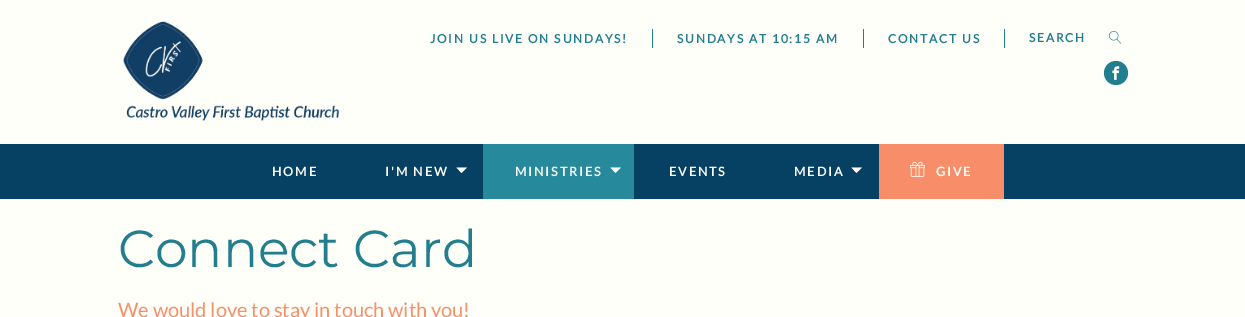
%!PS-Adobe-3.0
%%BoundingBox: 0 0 1245 317
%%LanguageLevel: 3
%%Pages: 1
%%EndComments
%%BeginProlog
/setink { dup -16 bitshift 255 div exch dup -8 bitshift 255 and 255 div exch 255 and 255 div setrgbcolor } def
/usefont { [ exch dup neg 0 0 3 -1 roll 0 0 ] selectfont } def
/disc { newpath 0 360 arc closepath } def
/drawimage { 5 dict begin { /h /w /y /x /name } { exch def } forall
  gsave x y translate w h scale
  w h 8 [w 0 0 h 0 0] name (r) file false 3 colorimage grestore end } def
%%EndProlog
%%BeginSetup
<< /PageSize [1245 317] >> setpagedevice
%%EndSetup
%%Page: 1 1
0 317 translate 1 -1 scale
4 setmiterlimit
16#064164 setink
0 0 1245 317 rectfill
16#FFFFFA setink
0 0 1245 144 rectfill
(img1.raw) 123 21 216 100 drawimage
16#227D8F setink
652 29 1 19 rectfill
/Lato-Bold 12 usefont
430 43 moveto 1.8 0 (JOIN US LIVE ON SUNDAYS!) ashow
863 29 1 19 rectfill
677 43 moveto 1.8 0 (SUNDAYS AT 10:15 AM) ashow
1004 29 1 19 rectfill
888 43 moveto 1.8 0 (CONTACT US) ashow
1029 42 moveto 1.8 0 (SEARCH) ashow
(img2.raw) 1109 31 12 13 drawimage
1116 73 12 disc fill
(img3.raw) 1112 66 8 14 drawimage
/Lato-Bold 12.5 usefont
16#FFFFFA setink
272 176 moveto 1.9 0 (HOME) ashow
385 176 moveto 1.9 0 (I'M NEW) ashow
456.5 167.5 moveto 467 167.5 lineto 461.5 173 lineto closepath fill
16#26899C setink
483 144 151 55 rectfill
16#FFFFFA setink
515 176 moveto 1.9 0 (MINISTRIES) ashow
610.5 167.5 moveto 621 167.5 lineto 615.5 173 lineto closepath fill
669 176 moveto 1.9 0 (EVENTS) ashow
794 176 moveto 1.9 0 (MEDIA) ashow
851.5 167.5 moveto 862 167.5 lineto 856.5 173 lineto closepath fill
16#F78E69 setink
879 144 125 55 rectfill
(img4.raw) 910 161 15 16 drawimage
16#FFFFFA setink
936 176 moveto 1.9 0 (GIVE) ashow
0 199 1245 118 rectfill
/Montserrat-Thin 52 usefont
16#227D8F setink
118 267 moveto (Connect Card) show
/Lato-Regular 20 usefont
16#F78F69 setink
118 317 moveto (We would love to stay in touch with you!) show
showpage
%%EOF
